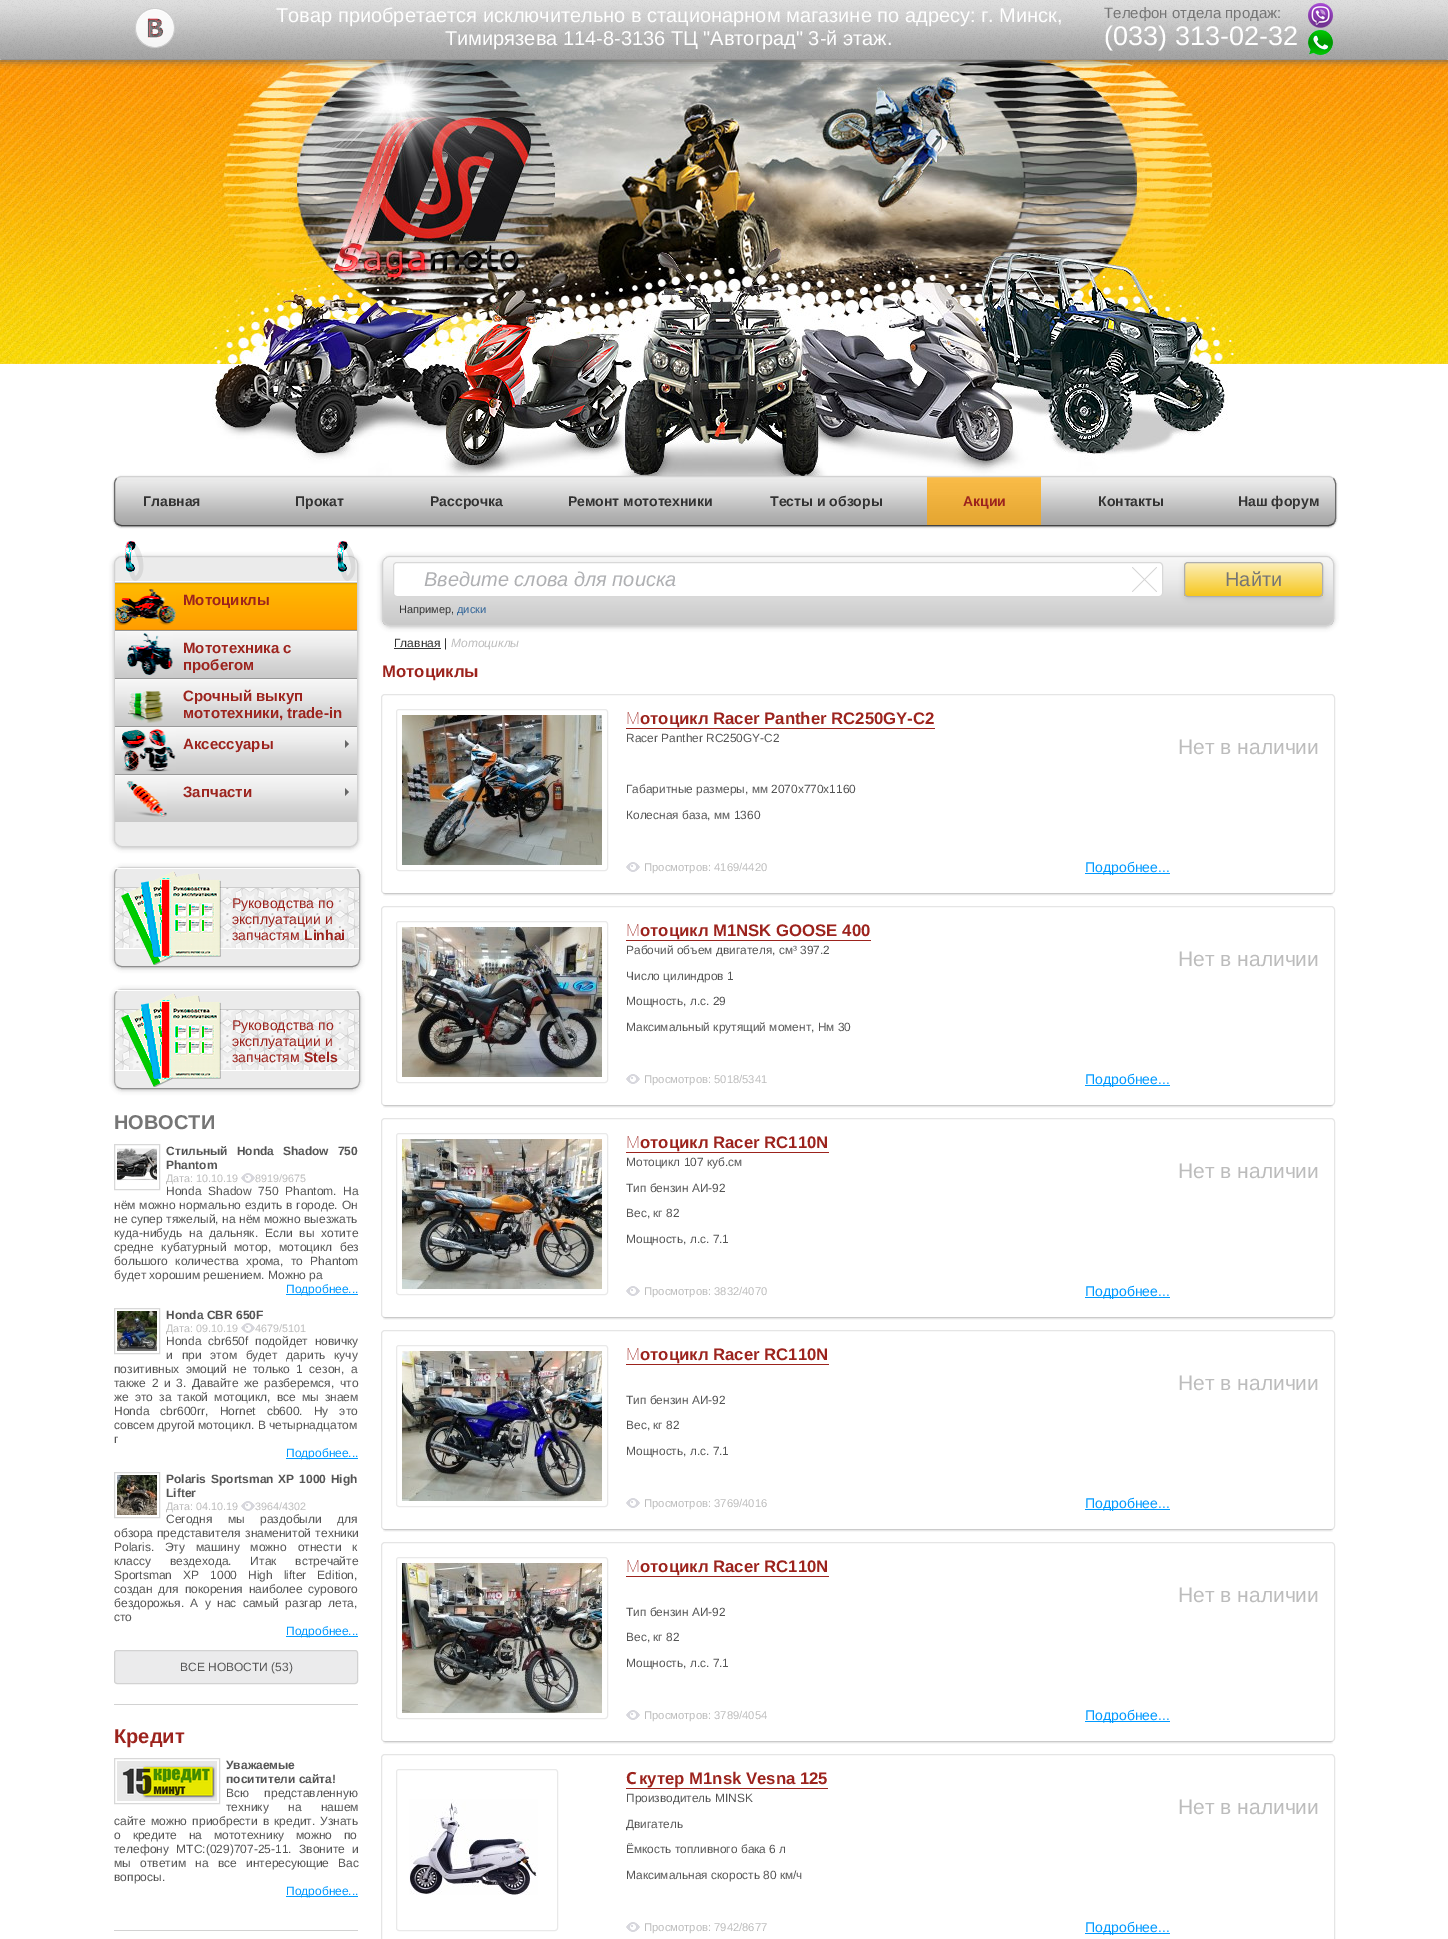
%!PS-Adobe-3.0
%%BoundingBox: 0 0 1448 1939
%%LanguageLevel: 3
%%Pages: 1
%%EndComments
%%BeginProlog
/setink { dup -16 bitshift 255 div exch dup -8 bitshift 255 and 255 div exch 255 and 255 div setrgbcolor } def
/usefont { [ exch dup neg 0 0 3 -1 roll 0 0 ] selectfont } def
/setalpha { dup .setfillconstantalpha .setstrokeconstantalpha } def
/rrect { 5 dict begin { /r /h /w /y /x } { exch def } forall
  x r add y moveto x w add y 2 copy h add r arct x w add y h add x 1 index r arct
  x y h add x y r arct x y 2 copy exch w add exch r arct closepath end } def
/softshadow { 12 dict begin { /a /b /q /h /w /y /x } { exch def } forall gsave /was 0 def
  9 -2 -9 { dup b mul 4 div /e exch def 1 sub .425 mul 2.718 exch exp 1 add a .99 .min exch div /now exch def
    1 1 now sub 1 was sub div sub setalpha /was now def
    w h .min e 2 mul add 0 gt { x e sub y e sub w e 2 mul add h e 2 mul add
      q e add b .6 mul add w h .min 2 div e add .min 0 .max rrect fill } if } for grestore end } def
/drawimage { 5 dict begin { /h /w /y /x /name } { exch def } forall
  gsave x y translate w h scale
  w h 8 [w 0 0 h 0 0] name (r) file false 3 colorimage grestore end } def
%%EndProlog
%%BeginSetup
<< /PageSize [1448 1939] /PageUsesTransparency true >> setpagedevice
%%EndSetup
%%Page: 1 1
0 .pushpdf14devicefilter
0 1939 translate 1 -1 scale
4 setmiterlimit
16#FFFFFF setink
0 0 1448 1939 rectfill
(img1.raw) 0 60 1448 416 drawimage
16#666666 setink
0 1 1448 60 0 4 1 softshadow
(img2.raw) 0 0 1448 59 drawimage
(img3.raw) 135 8 40 40 drawimage
/LiberationSans-Regular 20 usefont
16#FFFFFF setink
276 22 moveto (Товар приобретается исключительно в стационарном магазине по адресу: г. Минск,) show
445 45 moveto (Тимирязева 114-8-3136 ТЦ "Автоград" 3-й этаж.) show
/LiberationSans-Regular 15 usefont
16#757575 setink
1104 18 moveto (Телефон отдела продаж:) show
/LiberationSans-Regular 27 usefont
16#FFFFFF setink
1104 45 moveto (\(033\) 313-02-32) show
(img4.raw) 1308 3 25 25 drawimage
(img5.raw) 1308 30 25 25 drawimage
16#999999 setink
114 477 1222 50 8 1 1 softshadow
gsave
114 476 1222 50 8 rrect clip newpath
gsave 114 477 moveto 1336 477 lineto 1336 525 lineto 114 525 lineto closepath clip newpath
<< /ShadingType 2 /ColorSpace /DeviceRGB /Coords [725 477 725 525] /Extend [true true] /Function << /FunctionType 3 /Domain [0 1] /Functions [<< /FunctionType 2 /Domain [0 1] /C0 [0.925 0.925 0.925] /C1 [0.922 0.922 0.922] /N 1 >> << /FunctionType 2 /Domain [0 1] /C0 [0.922 0.922 0.922] /C1 [0.91 0.91 0.91] /N 1 >> << /FunctionType 2 /Domain [0 1] /C0 [0.91 0.91 0.91] /C1 [0.914 0.914 0.914] /N 1 >> << /FunctionType 2 /Domain [0 1] /C0 [0.914 0.914 0.914] /C1 [0.843 0.843 0.843] /N 1 >> << /FunctionType 2 /Domain [0 1] /C0 [0.843 0.843 0.843] /C1 [0.714 0.714 0.714] /N 1 >> << /FunctionType 2 /Domain [0 1] /C0 [0.714 0.714 0.714] /C1 [0.655 0.655 0.655] /N 1 >>] /Bounds [0.04 0.07 0.09 0.35 0.74] /Encode [0 1 0 1 0 1 0 1 0 1 0 1] >> >> shfill grestore
grestore
gsave 927 477 moveto 1041 477 lineto 1041 525 lineto 927 525 lineto closepath clip newpath
<< /ShadingType 2 /ColorSpace /DeviceRGB /Coords [725 477 725 525] /Extend [true true] /Function << /FunctionType 3 /Domain [0 1] /Functions [<< /FunctionType 2 /Domain [0 1] /C0 [0.976 0.733 0.278] /C1 [0.976 0.733 0.278] /N 1 >> << /FunctionType 2 /Domain [0 1] /C0 [0.976 0.733 0.278] /C1 [0.973 0.729 0.275] /N 1 >> << /FunctionType 2 /Domain [0 1] /C0 [0.973 0.729 0.275] /C1 [0.973 0.729 0.275] /N 1 >> << /FunctionType 2 /Domain [0 1] /C0 [0.973 0.729 0.275] /C1 [0.953 0.71 0.255] /N 1 >> << /FunctionType 2 /Domain [0 1] /C0 [0.953 0.71 0.255] /C1 [0.914 0.671 0.216] /N 1 >> << /FunctionType 2 /Domain [0 1] /C0 [0.914 0.671 0.216] /C1 [0.898 0.651 0.196] /N 1 >>] /Bounds [0.04 0.07 0.09 0.35 0.74] /Encode [0 1 0 1 0 1 0 1 0 1 0 1] >> >> shfill grestore
16#D2D2D2 setink
116.5 478.5 moveto 118 477.5 120 476.5 122 476.5 curveto 1328 476.5 lineto 1330 476.5 1332 477.5 1333.5 478.5 curveto stroke
16#6A6A6A setink
1333.5 478.5 moveto 1334.5 480 1335.5 482 1335.5 484 curveto 1335.5 518 lineto 1335.5 520 1334.5 522 1333.5 523.5 curveto stroke
16#434343 setink
1333.5 523.5 moveto 1332 524.5 1330 525.5 1328 525.5 curveto 122 525.5 lineto 120 525.5 118 524.5 116.5 523.5 curveto stroke
16#6A6A6A setink
116.5 523.5 moveto 115.5 522 114.5 520 114.5 518 curveto 114.5 484 lineto 114.5 482 115.5 480 116.5 478.5 curveto stroke
/LiberationSans-Bold 14 usefont
16#333333 setink
[
    [(Главная) 143 506]
    [(Прокат) 295 506]
    [(Рассрочка) 430 506]
    [(Ремонт мототехники) 568 506]
    [(Тесты и обзоры) 770 506]
] { aload pop moveto show } forall
16#9C231D setink
963 506 moveto (Акции) show
16#333333 setink
1098 506 moveto (Контакты) show
1238 506 moveto (Наш форум) show
16#323232 setink
114 557 244 291 8 2.5 0.3 softshadow
16#EBEBEB setink
114.5 556.5 243 290 7.5 rrect gsave fill grestore
16#D2D2D2 setink
stroke
(img6.raw) 125 541 19 40 drawimage
(img7.raw) 337 541 19 40 drawimage
16#FFFFFF setink
115 581 242 1 rectfill
gsave 115 583 moveto 357 583 lineto 357 630 lineto 115 630 lineto closepath clip newpath
<< /ShadingType 2 /ColorSpace /DeviceRGB /Coords [236 583 236 630] /Extend [true true] /Function << /FunctionType 3 /Domain [0 1] /Functions [<< /FunctionType 2 /Domain [0 1] /C0 [0.831 0.608 0] /C1 [0.945 0.686 0] /N 1 >> << /FunctionType 2 /Domain [0 1] /C0 [0.945 0.686 0] /C1 [1 0.725 0] /N 1 >> << /FunctionType 2 /Domain [0 1] /C0 [1 0.725 0] /C1 [1 0.616 0] /N 1 >> << /FunctionType 2 /Domain [0 1] /C0 [1 0.616 0] /C1 [0.945 0.576 0] /N 1 >>] /Bounds [0.02 0.05 0.98] /Encode [0 1 0 1 0 1 0 1] >> >> shfill grestore
16#CCCCCC setink
115 582 242 1 rectfill
(img8.raw) 115 589 61 36 drawimage
/LiberationSans-Bold 15 usefont
16#9C231D setink
183 605 moveto (Мотоциклы) show
gsave 115 631 moveto 357 631 lineto 357 678 lineto 115 678 lineto closepath clip newpath
<< /ShadingType 2 /ColorSpace /DeviceRGB /Coords [236 631 236 678] /Extend [true true] /Function << /FunctionType 3 /Domain [0 1] /Functions [<< /FunctionType 2 /Domain [0 1] /C0 [1 1 1] /C1 [0.969 0.969 0.969] /N 1 >> << /FunctionType 2 /Domain [0 1] /C0 [0.969 0.969 0.969] /C1 [0.922 0.922 0.922] /N 1 >> << /FunctionType 2 /Domain [0 1] /C0 [0.922 0.922 0.922] /C1 [0.835 0.835 0.835] /N 1 >> << /FunctionType 2 /Domain [0 1] /C0 [0.835 0.835 0.835] /C1 [0.788 0.788 0.788] /N 1 >>] /Bounds [0.02 0.33 0.7] /Encode [0 1 0 1 0 1 0 1] >> >> shfill grestore
16#999999 setink
115 630 242 1 rectfill
(img9.raw) 127 633 46 42 drawimage
16#9C231D setink
183 653 moveto (Мототехника с) show
183 670 moveto (пробегом) show
gsave 115 679 moveto 357 679 lineto 357 726 lineto 115 726 lineto closepath clip newpath
<< /ShadingType 2 /ColorSpace /DeviceRGB /Coords [236 679 236 726] /Extend [true true] /Function << /FunctionType 3 /Domain [0 1] /Functions [<< /FunctionType 2 /Domain [0 1] /C0 [1 1 1] /C1 [0.969 0.969 0.969] /N 1 >> << /FunctionType 2 /Domain [0 1] /C0 [0.969 0.969 0.969] /C1 [0.922 0.922 0.922] /N 1 >> << /FunctionType 2 /Domain [0 1] /C0 [0.922 0.922 0.922] /C1 [0.835 0.835 0.835] /N 1 >> << /FunctionType 2 /Domain [0 1] /C0 [0.835 0.835 0.835] /C1 [0.788 0.788 0.788] /N 1 >>] /Bounds [0.02 0.33 0.7] /Encode [0 1 0 1 0 1 0 1] >> >> shfill grestore
16#999999 setink
115 678 242 1 rectfill
(img10.raw) 127 691 37 32 drawimage
16#9C231D setink
183 701 moveto (Срочный выкуп) show
183 718 moveto (мототехники, trade-in) show
gsave 115 727 moveto 357 727 lineto 357 774 lineto 115 774 lineto closepath clip newpath
<< /ShadingType 2 /ColorSpace /DeviceRGB /Coords [236 727 236 774] /Extend [true true] /Function << /FunctionType 3 /Domain [0 1] /Functions [<< /FunctionType 2 /Domain [0 1] /C0 [1 1 1] /C1 [0.969 0.969 0.969] /N 1 >> << /FunctionType 2 /Domain [0 1] /C0 [0.969 0.969 0.969] /C1 [0.922 0.922 0.922] /N 1 >> << /FunctionType 2 /Domain [0 1] /C0 [0.922 0.922 0.922] /C1 [0.835 0.835 0.835] /N 1 >> << /FunctionType 2 /Domain [0 1] /C0 [0.835 0.835 0.835] /C1 [0.788 0.788 0.788] /N 1 >>] /Bounds [0.02 0.33 0.7] /Encode [0 1 0 1 0 1 0 1] >> >> shfill grestore
16#999999 setink
115 726 242 1 rectfill
(img11.raw) 121 729 55 43 drawimage
16#9C231D setink
183 749 moveto (Аксессуары) show
16#666666 setink
345 748 moveto 345 740 lineto 349 744 lineto closepath fill
gsave 115 775 moveto 357 775 lineto 357 822 lineto 115 822 lineto closepath clip newpath
<< /ShadingType 2 /ColorSpace /DeviceRGB /Coords [236 775 236 822] /Extend [true true] /Function << /FunctionType 3 /Domain [0 1] /Functions [<< /FunctionType 2 /Domain [0 1] /C0 [1 1 1] /C1 [0.969 0.969 0.969] /N 1 >> << /FunctionType 2 /Domain [0 1] /C0 [0.969 0.969 0.969] /C1 [0.922 0.922 0.922] /N 1 >> << /FunctionType 2 /Domain [0 1] /C0 [0.922 0.922 0.922] /C1 [0.835 0.835 0.835] /N 1 >> << /FunctionType 2 /Domain [0 1] /C0 [0.835 0.835 0.835] /C1 [0.788 0.788 0.788] /N 1 >>] /Bounds [0.02 0.33 0.7] /Encode [0 1 0 1 0 1 0 1] >> >> shfill grestore
16#999999 setink
115 774 242 1 rectfill
(img12.raw) 127 781 40 36 drawimage
16#9C231D setink
183 797 moveto (Запчасти) show
16#666666 setink
345 796 moveto 345 788 lineto 349 792 lineto closepath fill
16#323232 setink
114 868 246 100 8 2.5 0.3 softshadow
16#EBEBEB setink
114 867 246 100 8 rrect fill
16#D2D2D2 setink
116.5 869.5 moveto 118 868.5 120 867.5 122 867.5 curveto 352 867.5 lineto 354 867.5 356 868.5 357.5 869.5 curveto stroke
16#AAAAAA setink
357.5 869.5 moveto 358.5 871 359.5 873 359.5 875 curveto 359.5 959 lineto 359.5 961 358.5 963 357.5 964.5 curveto stroke
16#8E8E8E setink
357.5 964.5 moveto 356 965.5 354 966.5 352 966.5 curveto 122 966.5 lineto 120 966.5 118 965.5 116.5 964.5 curveto stroke
16#AAAAAA setink
116.5 964.5 moveto 115.5 963 114.5 961 114.5 959 curveto 114.5 875 lineto 114.5 873 115.5 871 116.5 869.5 curveto stroke
16#FFFFFF setink
115 868 244 1 rectfill
(img14.raw) 115 888 244 60 drawimage
16#CCCCCC setink
115 887 244 1 rectfill
16#FFFFFF setink
115 948 244 1 rectfill
(img13.raw) 121 871 100 94 drawimage
/LiberationSans-Regular 14 usefont
16#9C231D setink
[
    [(Руководства по) 232 908]
    [(эксплуатации и) 232 924]
    [(запчастям) 232 940]
] { aload pop moveto show } forall
/LiberationSans-Bold 14 usefont
304 940 moveto (Linhai) show
16#323232 setink
114 990 246 100 8 2.5 0.3 softshadow
16#EBEBEB setink
114 989 246 100 8 rrect fill
16#D2D2D2 setink
116.5 991.5 moveto 118 990.5 120 989.5 122 989.5 curveto 352 989.5 lineto 354 989.5 356 990.5 357.5 991.5 curveto stroke
16#AAAAAA setink
357.5 991.5 moveto 358.5 993 359.5 995 359.5 997 curveto 359.5 1081 lineto 359.5 1083 358.5 1085 357.5 1086.5 curveto stroke
16#8E8E8E setink
357.5 1086.5 moveto 356 1087.5 354 1088.5 352 1088.5 curveto 122 1088.5 lineto 120 1088.5 118 1087.5 116.5 1086.5 curveto stroke
16#AAAAAA setink
116.5 1086.5 moveto 115.5 1085 114.5 1083 114.5 1081 curveto 114.5 997 lineto 114.5 995 115.5 993 116.5 991.5 curveto stroke
16#FFFFFF setink
115 990 244 1 rectfill
(img14.raw) 115 1010 244 60 drawimage
16#CCCCCC setink
115 1009 244 1 rectfill
16#FFFFFF setink
115 1070 244 1 rectfill
(img13.raw) 121 993 100 94 drawimage
/LiberationSans-Regular 14 usefont
16#9C231D setink
[
    [(Руководства по) 232 1030]
    [(эксплуатации и) 232 1046]
    [(запчастям) 232 1062]
] { aload pop moveto show } forall
/LiberationSans-Bold 14 usefont
304 1062 moveto (Stels) show
16#D2D2D2 setink
114 1704 244 1 rectfill
/LiberationSans-Bold 20 usefont
16#757575 setink
114 1129 moveto (НОВОСТИ) show
16#D8D8D8 setink
114.5 1144.5 45 45 rectstroke
(img15.raw) 117 1148 40 33 drawimage
/LiberationSans-Bold 12 usefont
16#555555 setink
166 1155 moveto 5.5 0 32 (Cтильный Honda Shadow 750) widthshow
166 1169 moveto (Phantom) show
/LiberationSans-Regular 10.75 usefont
16#BCBCBC setink
166 1182 moveto (Дата: 10.10.19) show
(img16.raw) 241 1173 14 10 drawimage
255 1182 moveto (8919/9675) show
/LiberationSans-Regular 12 usefont
16#555555 setink
166 1195 moveto 3.5 0 32 (Honda Shadow 750 Phantom. На) widthshow
114 1209 moveto 0.5 0 32 (нём можно нормально ездить в городе. Он) widthshow
114 1223 moveto 0.25 0 32 (не супер тяжелый, на нём можно выезжать) widthshow
114 1237 moveto 3.5 0 32 (куда-нибудь на дальняк. Если вы хотите) widthshow
114 1251 moveto 4.5 0 32 (средне кубатурный мотор, мотоцикл без) widthshow
114 1265 moveto 4 0 32 (большого количества хрома, то Phantom) widthshow
114 1279 moveto (будет хорошим решением. Можно ра) show
16#0099FF setink
286 1294 72 1 rectfill
286 1293 moveto (Подробнее...) show
16#D8D8D8 setink
114.5 1308.5 45 45 rectstroke
(img17.raw) 117 1311 40 40 drawimage
/LiberationSans-Bold 12 usefont
16#555555 setink
166 1319 moveto (Honda CBR 650F) show
/LiberationSans-Regular 10.75 usefont
16#BCBCBC setink
166 1332 moveto (Дата: 09.10.19) show
(img16.raw) 241 1323 14 10 drawimage
255 1332 moveto (4679/5101) show
/LiberationSans-Regular 12 usefont
16#555555 setink
166 1345 moveto 3.5 0 32 (Honda cbr650f подойдет новичку) widthshow
166 1359 moveto 5.5 0 32 (и при этом будет дарить кучу) widthshow
114 1373 moveto 3 0 32 (позитивных эмоций не только 1 сезон, а) widthshow
114 1387 moveto 2.25 0 32 (также 2 и 3. Давайте же разберемся, что) widthshow
114 1401 moveto 2.75 0 32 (же это за такой мотоцикл, все мы знаем) widthshow
114 1415 moveto 7.75 0 32 (Honda cbr600rr, Hornet cb600. Ну это) widthshow
114 1429 moveto (совсем другой мотоцикл. В четырнадцатом) show
114 1443 moveto (г) show
16#0099FF setink
286 1458 72 1 rectfill
286 1457 moveto (Подробнее...) show
16#D8D8D8 setink
114.5 1472.5 45 45 rectstroke
(img18.raw) 117 1475 40 40 drawimage
/LiberationSans-Bold 12 usefont
16#555555 setink
166 1483 moveto 1.5 0 32 (Polaris Sportsman XP 1000 High) widthshow
166 1497 moveto (Lifter) show
/LiberationSans-Regular 10.75 usefont
16#BCBCBC setink
166 1510 moveto (Дата: 04.10.19) show
(img16.raw) 241 1501 14 10 drawimage
255 1510 moveto (3964/4302) show
/LiberationSans-Regular 12 usefont
16#555555 setink
166 1523 moveto 12 0 32 (Cегодня мы раздобыли для) widthshow
114 1537 moveto (обзора) show
157 1537 moveto 1 0 32 (представителя знаменитой техники) widthshow
114 1551 moveto 7.5 0 32 (Polaris. Эту машину можно отнести к) widthshow
114 1565 moveto 15.5 0 32 (классу вездехода. Итак встречайте) widthshow
114 1579 moveto 7.75 0 32 (Sportsman XP 1000 High lifter Edition,) widthshow
114 1593 moveto 2.5 0 32 (создан для покорения наиболее сурового) widthshow
114 1607 moveto 3 0 32 (бездорожья. А у нас самый разгар лета,) widthshow
114 1621 moveto (сто) show
16#0099FF setink
286 1636 72 1 rectfill
286 1635 moveto (Подробнее...) show
16#EBEBEC setink
114.5 1650.5 243 33 2.5 rrect gsave fill grestore
16#D2D2D2 setink
stroke
16#555555 setink
180 1671 moveto (ВСЕ НОВОСТИ \(53\)) show
16#D2D2D2 setink
114 1930 244 1 rectfill
/LiberationSans-Bold 20 usefont
16#9C231D setink
114 1743 moveto (Кредит) show
16#D8D8D8 setink
114.5 1758.5 105 45 rectstroke
(img19.raw) 117 1761 100 40 drawimage
/LiberationSans-Bold 12 usefont
16#555555 setink
226 1769 moveto (Уважаемые) show
226 1783 moveto (поситители сайта!) show
/LiberationSans-Regular 12 usefont
226 1797 moveto 12 0 32 (Всю представленную) widthshow
226 1811 moveto 16 0 32 (технику на нашем) widthshow
114 1825 moveto 2 0 32 (сайте можно приобрести в) widthshow
274 1825 moveto (кредит.) show
320 1825 moveto (Узнать) show
114 1839 moveto 8.5 0 32 (о кредите на мототехнику можно по) widthshow
114 1853 moveto 4 0 32 (телефону MТС:\(029\)707-25-11. Звоните и) widthshow
114 1867 moveto 6 0 32 (мы ответим) widthshow
195 1867 moveto 6 0 32 (на все интересующие Вас) widthshow
114 1881 moveto (вопросы.) show
16#0099FF setink
286 1896 72 1 rectfill
286 1895 moveto (Подробнее...) show
16#323232 setink
382 557 952 70 8 2.5 0.3 softshadow
gsave
382 556 952 70 8 rrect clip newpath
gsave 382 557 moveto 1334 557 lineto 1334 625 lineto 382 625 lineto closepath clip newpath
<< /ShadingType 2 /ColorSpace /DeviceRGB /Coords [858 557 858 625] /Extend [true true] /Function << /FunctionType 3 /Domain [0 1] /Functions [<< /FunctionType 2 /Domain [0 1] /C0 [1 1 1] /C1 [0.969 0.969 0.969] /N 1 >> << /FunctionType 2 /Domain [0 1] /C0 [0.969 0.969 0.969] /C1 [0.922 0.922 0.922] /N 1 >> << /FunctionType 2 /Domain [0 1] /C0 [0.922 0.922 0.922] /C1 [0.835 0.835 0.835] /N 1 >> << /FunctionType 2 /Domain [0 1] /C0 [0.835 0.835 0.835] /C1 [0.788 0.788 0.788] /N 1 >>] /Bounds [0.02 0.33 0.7] /Encode [0 1 0 1 0 1 0 1] >> >> shfill grestore
grestore
16#D2D2D2 setink
382.5 556.5 951 69 7.5 rrect stroke
16#FFFFFF setink
393.5 562.5 769 34 3.5 rrect gsave fill grestore
16#D8D8D8 setink
stroke
/LiberationSans-Italic 20 usefont
16#AFB0B3 setink
424 586 moveto (Введите слова для поиска) show
(img20.raw) 1132 567 25 25 drawimage
/LiberationSans-Regular 11 usefont
16#333333 setink
399 613 moveto (Например,) show
16#336699 setink
457 613 moveto (диски) show
16#000000 setink
1184 564 139 35 4 2.5 0.08 softshadow
gsave
1184 562 139 35 4 rrect clip newpath
gsave 1184 563 moveto 1323 563 lineto 1323 596 lineto 1184 596 lineto closepath clip newpath
<< /ShadingType 2 /ColorSpace /DeviceRGB /Coords [1254 563 1254 596] /Extend [true true] /Function << /FunctionType 2 /Domain [0 1] /C0 [0.988 0.933 0.718] /C1 [0.965 0.78 0.118] /N 1 >> >> shfill grestore
grestore
16#AFAFAF setink
1184.5 562.5 138 34 3.5 rrect stroke
/LiberationSans-Regular 20 usefont
16#757575 setink
1225 586 moveto (Найти) show
16#333333 setink
394 648 47 1 rectfill
/LiberationSans-Regular 12 usefont
394 647 moveto (Главная |) show
/LiberationSans-Italic 12 usefont
16#BCBCBC setink
451 647 moveto (Мотоциклы) show
/LiberationSans-Bold 16.75 usefont
16#9C231D setink
382 677 moveto (Мотоциклы) show
gsave
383 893 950 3 rectclip
16#000000 setink
385 701 946 192 0 2 0.3 softshadow
grestore
0.1 setalpha
16#000000 setink
381.5 694.5 953 199 3.5 rrect stroke
1 setalpha
16#E9E9E9 setink
396.5 709.5 211 161 2.5 rrect stroke
(img21.raw) 402 715 200 150 drawimage
/NotoSans-Thin 16.75 usefont
16#9C231D setink
626 724 moveto (М) show
/LiberationSans-Bold 16.75 usefont
640 724 moveto (отоцикл Racer Panther RC250GY-C2) show
626 728 309 1 rectfill
/LiberationSans-Regular 11.9 usefont
16#555555 setink
[
    [(Racer Panther RC250GY-C2) 626 742]
    [(Габаритные размеры, мм 2070х770х1160) 626 793]
    [(Колесная база, мм 1360) 626 819]
] { aload pop moveto show } forall
(img16.raw) 626 862 14 10 drawimage
/LiberationSans-Regular 11.25 usefont
16#BCBCBC setink
644 871 moveto (Просмотров: 4169/4420) show
16#0099FF setink
1085 873 85 1 rectfill
/LiberationSans-Regular 14 usefont
1085 872 moveto (Подробнее...) show
/LiberationSans-Regular 21 usefont
16#BCBCBC setink
1178 754 moveto (Нет в наличии) show
gsave
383 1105 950 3 rectclip
16#000000 setink
385 913 946 192 0 2 0.3 softshadow
grestore
0.1 setalpha
16#000000 setink
381.5 906.5 953 199 3.5 rrect stroke
1 setalpha
16#E9E9E9 setink
396.5 921.5 211 161 2.5 rrect stroke
(img22.raw) 402 927 200 150 drawimage
/NotoSans-Thin 16.75 usefont
16#9C231D setink
626 936 moveto (М) show
/LiberationSans-Bold 16.75 usefont
640 936 moveto (отоцикл M1NSK GOOSE 400) show
626 940 245 1 rectfill
/LiberationSans-Regular 11.9 usefont
16#555555 setink
[
    [(Рабочий объем двигателя, см³ 397.2) 626 954]
    [(Число цилиндров 1) 626 980]
    [(Мощность, л.с. 29) 626 1005]
    [(Максимальный крутящий момент, Нм 30) 626 1031]
] { aload pop moveto show } forall
(img16.raw) 626 1074 14 10 drawimage
/LiberationSans-Regular 11.25 usefont
16#BCBCBC setink
644 1083 moveto (Просмотров: 5018/5341) show
16#0099FF setink
1085 1085 85 1 rectfill
/LiberationSans-Regular 14 usefont
1085 1084 moveto (Подробнее...) show
/LiberationSans-Regular 21 usefont
16#BCBCBC setink
1178 966 moveto (Нет в наличии) show
gsave
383 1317 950 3 rectclip
16#000000 setink
385 1125 946 192 0 2 0.3 softshadow
grestore
0.1 setalpha
16#000000 setink
381.5 1118.5 953 199 3.5 rrect stroke
1 setalpha
16#E9E9E9 setink
396.5 1133.5 211 161 2.5 rrect stroke
(img23.raw) 402 1139 200 150 drawimage
/NotoSans-Thin 16.75 usefont
16#9C231D setink
626 1148 moveto (М) show
/LiberationSans-Bold 16.75 usefont
640 1148 moveto (отоцикл Racer RC110N) show
626 1152 203 1 rectfill
/LiberationSans-Regular 11.9 usefont
16#555555 setink
[
    [(Мотоцикл 107 куб.см) 626 1166]
    [(Тип бензин АИ-92) 626 1192]
    [(Вес, кг 82) 626 1217]
    [(Мощность, л.с. 7.1) 626 1243]
] { aload pop moveto show } forall
(img16.raw) 626 1286 14 10 drawimage
/LiberationSans-Regular 11.25 usefont
16#BCBCBC setink
644 1295 moveto (Просмотров: 3832/4070) show
16#0099FF setink
1085 1297 85 1 rectfill
/LiberationSans-Regular 14 usefont
1085 1296 moveto (Подробнее...) show
/LiberationSans-Regular 21 usefont
16#BCBCBC setink
1178 1178 moveto (Нет в наличии) show
gsave
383 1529 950 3 rectclip
16#000000 setink
385 1337 946 192 0 2 0.3 softshadow
grestore
0.1 setalpha
16#000000 setink
381.5 1330.5 953 199 3.5 rrect stroke
1 setalpha
16#E9E9E9 setink
396.5 1345.5 211 161 2.5 rrect stroke
(img24.raw) 402 1351 200 150 drawimage
/NotoSans-Thin 16.75 usefont
16#9C231D setink
626 1360 moveto (М) show
/LiberationSans-Bold 16.75 usefont
640 1360 moveto (отоцикл Racer RC110N) show
626 1364 203 1 rectfill
/LiberationSans-Regular 11.9 usefont
16#555555 setink
[
    [(Тип бензин АИ-92) 626 1404]
    [(Вес, кг 82) 626 1429]
    [(Мощность, л.с. 7.1) 626 1455]
] { aload pop moveto show } forall
(img16.raw) 626 1498 14 10 drawimage
/LiberationSans-Regular 11.25 usefont
16#BCBCBC setink
644 1507 moveto (Просмотров: 3769/4016) show
16#0099FF setink
1085 1509 85 1 rectfill
/LiberationSans-Regular 14 usefont
1085 1508 moveto (Подробнее...) show
/LiberationSans-Regular 21 usefont
16#BCBCBC setink
1178 1390 moveto (Нет в наличии) show
gsave
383 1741 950 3 rectclip
16#000000 setink
385 1549 946 192 0 2 0.3 softshadow
grestore
0.1 setalpha
16#000000 setink
381.5 1542.5 953 199 3.5 rrect stroke
1 setalpha
16#E9E9E9 setink
396.5 1557.5 211 161 2.5 rrect stroke
(img25.raw) 402 1563 200 150 drawimage
/NotoSans-Thin 16.75 usefont
16#9C231D setink
626 1572 moveto (М) show
/LiberationSans-Bold 16.75 usefont
640 1572 moveto (отоцикл Racer RC110N) show
626 1576 203 1 rectfill
/LiberationSans-Regular 11.9 usefont
16#555555 setink
[
    [(Тип бензин АИ-92) 626 1616]
    [(Вес, кг 82) 626 1641]
    [(Мощность, л.с. 7.1) 626 1667]
] { aload pop moveto show } forall
(img16.raw) 626 1710 14 10 drawimage
/LiberationSans-Regular 11.25 usefont
16#BCBCBC setink
644 1719 moveto (Просмотров: 3789/4054) show
16#0099FF setink
1085 1721 85 1 rectfill
/LiberationSans-Regular 14 usefont
1085 1720 moveto (Подробнее...) show
/LiberationSans-Regular 21 usefont
16#BCBCBC setink
1178 1602 moveto (Нет в наличии) show
0.1 setalpha
16#000000 setink
381.5 1754.5 953 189 3.5 rrect stroke
1 setalpha
16#E9E9E9 setink
396.5 1769.5 161 161 2.5 rrect stroke
(img26.raw) 409 1799 129 96 drawimage
/NotoSans-Bold 16.75 usefont
16#9C231D setink
626 1784 moveto (С) show
/LiberationSans-Bold 16.75 usefont
639 1784 moveto (кутер M1nsk Vesna 125) show
626 1788 202 1 rectfill
/LiberationSans-Regular 11.9 usefont
16#555555 setink
[
    [(Производитель MINSK) 626 1802]
    [(Двигатель) 626 1828]
    [(Ёмкость топливного бака 6 л) 626 1853]
    [(Максимальная скорость 80 км/ч) 626 1879]
] { aload pop moveto show } forall
(img16.raw) 626 1922 14 10 drawimage
/LiberationSans-Regular 11.25 usefont
16#BCBCBC setink
644 1931 moveto (Просмотров: 7942/8677) show
16#0099FF setink
1085 1933 85 1 rectfill
/LiberationSans-Regular 14 usefont
1085 1932 moveto (Подробнее...) show
/LiberationSans-Regular 21 usefont
16#BCBCBC setink
1178 1814 moveto (Нет в наличии) show
.poppdf14devicefilter showpage
%%EOF
